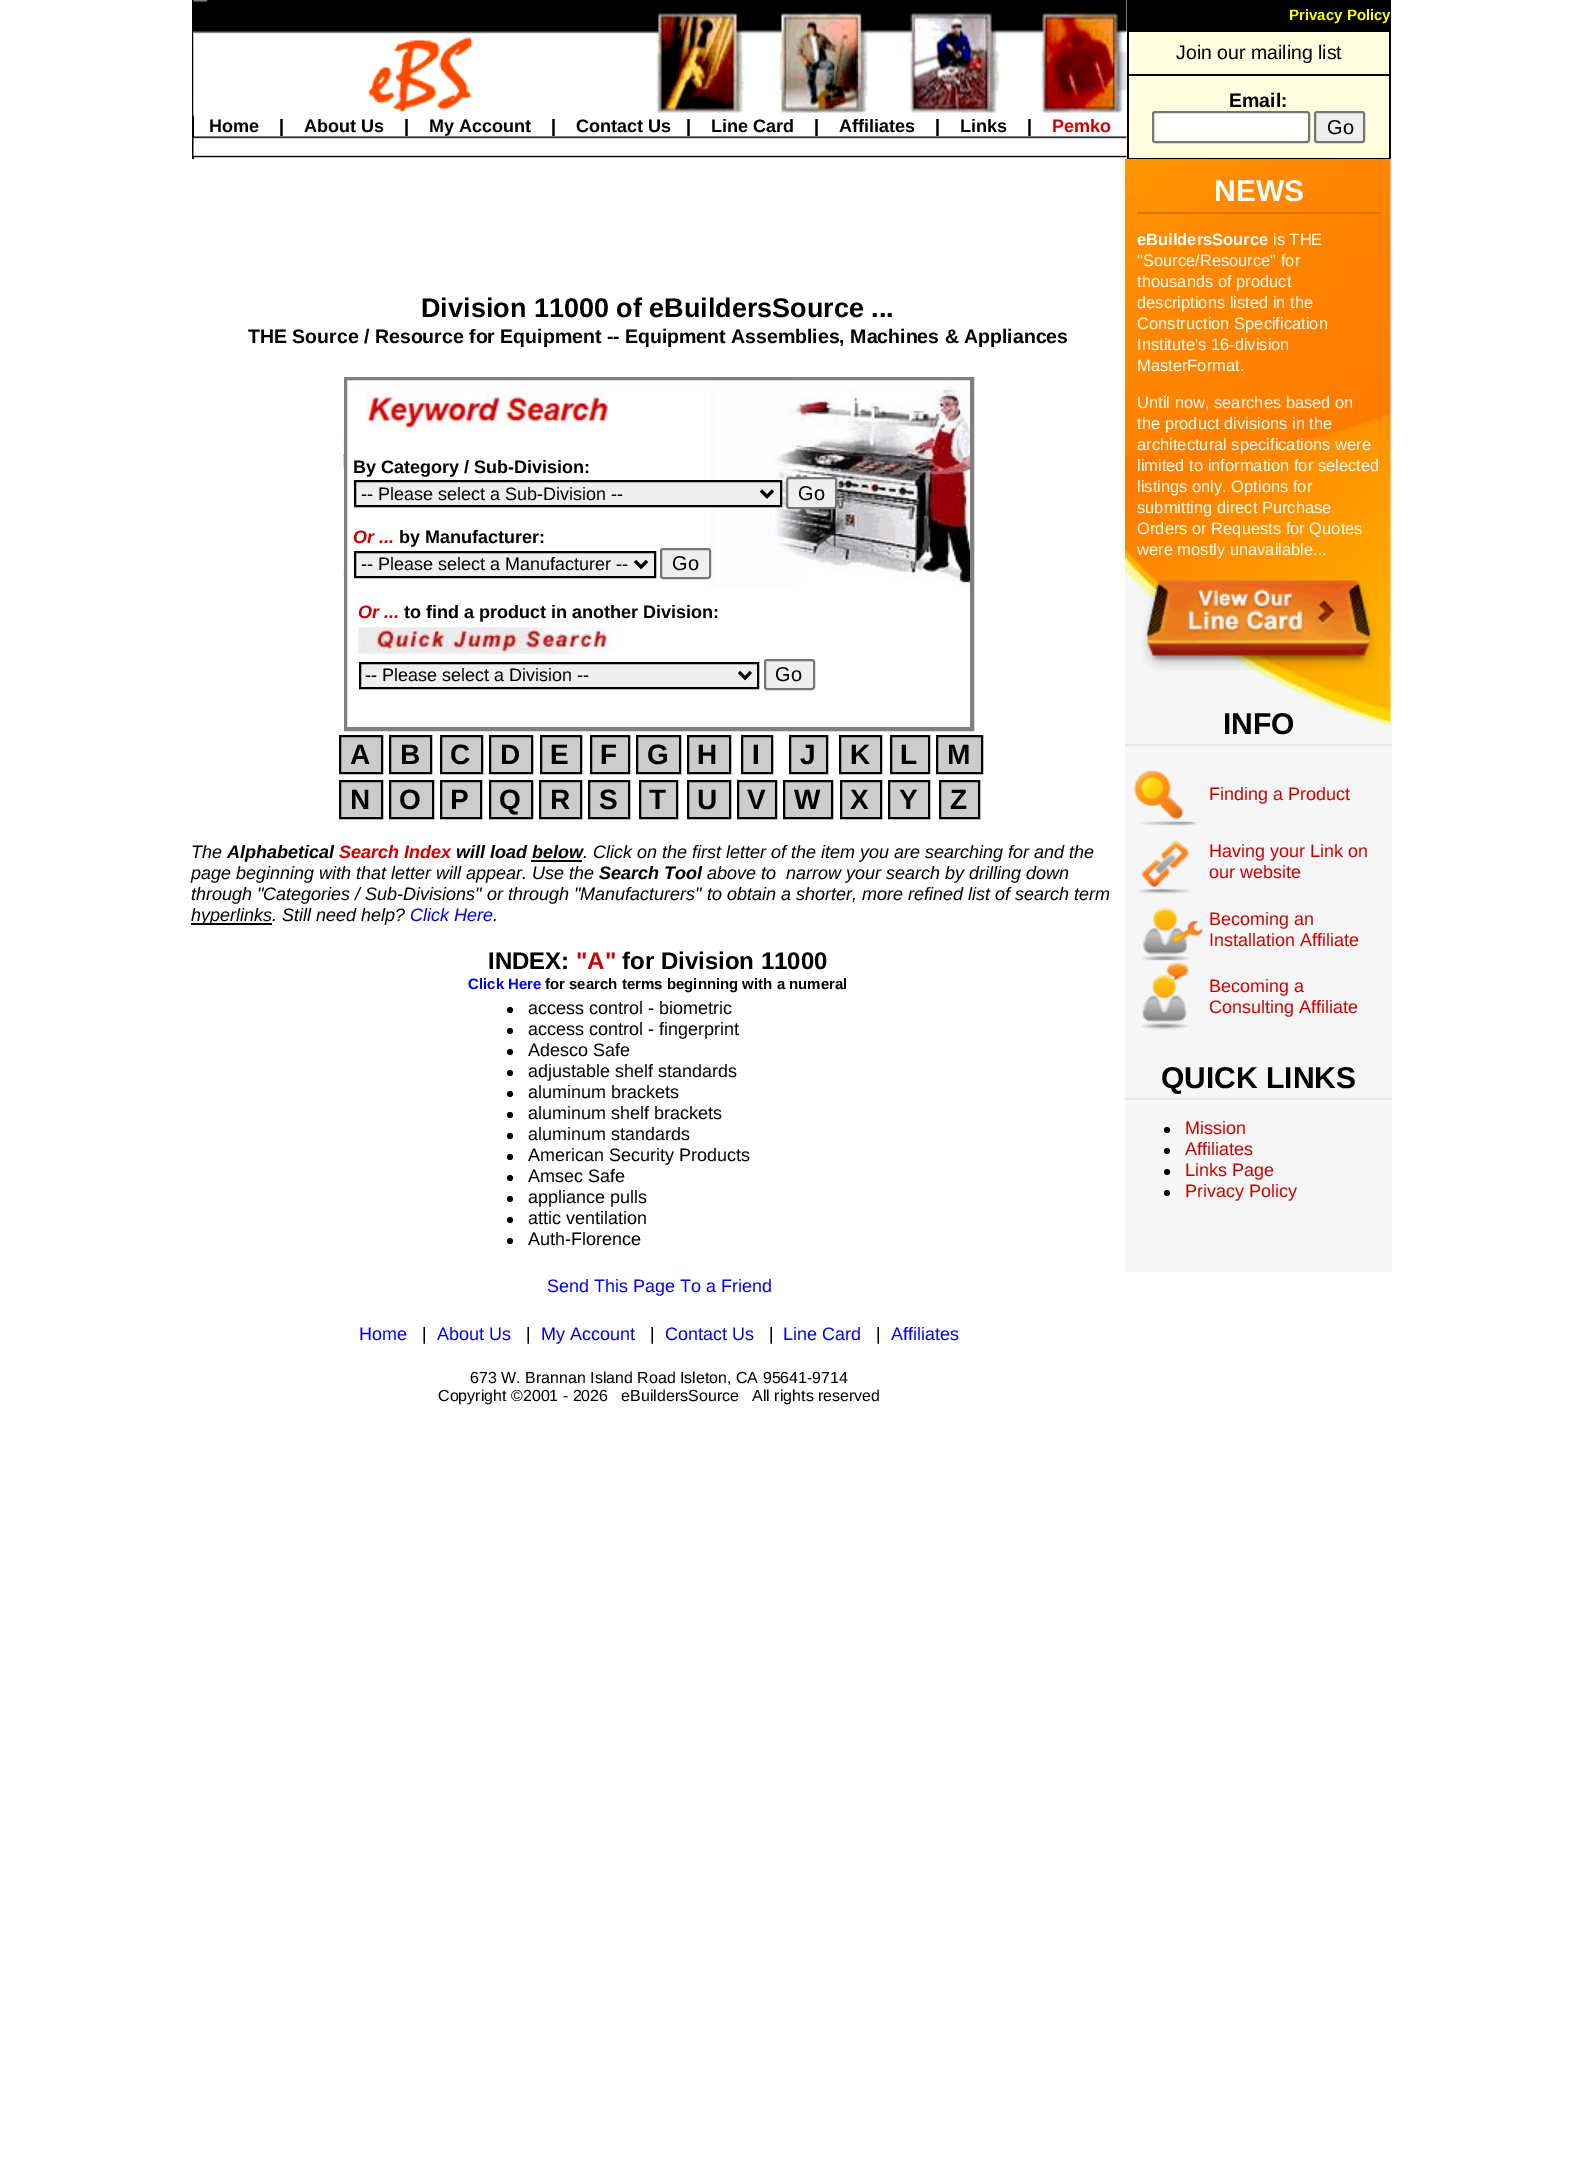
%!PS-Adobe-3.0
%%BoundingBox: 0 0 1582 2165
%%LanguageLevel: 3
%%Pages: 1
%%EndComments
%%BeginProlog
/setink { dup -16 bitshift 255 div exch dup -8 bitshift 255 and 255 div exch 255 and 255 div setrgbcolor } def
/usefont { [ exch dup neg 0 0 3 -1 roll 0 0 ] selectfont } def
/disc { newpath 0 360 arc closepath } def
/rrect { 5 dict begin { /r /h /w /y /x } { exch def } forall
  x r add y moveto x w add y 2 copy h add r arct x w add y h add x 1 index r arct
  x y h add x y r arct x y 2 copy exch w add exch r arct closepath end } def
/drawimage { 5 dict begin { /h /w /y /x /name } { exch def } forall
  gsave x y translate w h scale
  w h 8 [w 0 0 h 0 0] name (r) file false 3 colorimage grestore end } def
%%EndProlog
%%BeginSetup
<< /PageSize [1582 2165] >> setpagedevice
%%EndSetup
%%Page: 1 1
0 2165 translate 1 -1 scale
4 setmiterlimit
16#FFFFFF setink
0 0 1582 2165 rectfill
16#000000 setink
192 0 2 159 rectfill
(img1.raw) 193 0 934 116 drawimage
(img2.raw) 193 0 932 116 drawimage
/LiberationSans-Bold 18 usefont
[
    [(Home) 209 132]
    [(|) 279 132]
    [(About Us) 304 132]
    [(|) 404 132]
    [(My Account) 429 132]
    [(|) 551 132]
    [(Contact Us) 576 132]
    [(|) 686 132]
    [(Line Card) 711 132]
    [(|) 814 132]
    [(Affiliates) 839 132]
    [(|) 935 132]
    [(Links) 960 132]
    [(|) 1027 132]
] { aload pop moveto show } forall
16#CC0000 setink
1052 132 moveto (Pemko) show
(img3.raw) 193 136 934 20 drawimage
(img4.raw) 193 156 934 2 drawimage
16#000000 setink
1127 0 264 32 rectfill
/LiberationSans-Bold 15 usefont
16#FFFF00 setink
1289 20 moveto (Privacy Policy) show
[
    [1129 32 260 126 16#FFFFE0]
    [1389 30 2 129 16#000000]
    [1127 158 264 1 16#000000]
    [1127 30 2 129 16#000000]
] { aload pop setink rectfill } forall
/LiberationSans-Regular 19.5 usefont
1176 59 moveto (Join our mailing list) show
1127 74 264 2 rectfill
/LiberationSans-Bold 19.5 usefont
1229 107 moveto (Email:) show
16#FFFFFF setink
1153 112 156 30 2 rrect gsave fill grestore
16#767676 setink
2 setlinewidth
stroke
16#EFEFEF setink
1315 112 49 30 2 rrect gsave fill grestore
16#767676 setink
stroke
/LiberationSans-Regular 20 usefont
16#000000 setink
1327 134 moveto (Go) show
/LiberationSans-Bold 27 usefont
421 317 moveto (Division 11000 of eBuildersSource ...) show
/LiberationSans-Bold 19.5 usefont
248 343 moveto (THE Source / Resource for Equipment -- Equipment Assemblies, Machines & Appliances) show
(img5.raw) 343 378 627 211 drawimage
16#808080 setink
345 378 628 352 rectstroke
346 379 625 349 rectstroke
(img6.raw) 366 391 243 37 drawimage
/LiberationSans-Bold 18 usefont
16#000000 setink
353 473 moveto (By Category / Sub-Division:) show
16#EFEFEF setink
355 481 moveto 781 481 lineto 781 506 lineto 355 506 lineto closepath gsave fill grestore
16#000000 setink
stroke
3 setlinewidth
761 490.5 moveto 767 496.5 lineto 773 490.5 lineto stroke
/LiberationSans-Regular 18 usefont
361 500 moveto (-- Please select a Sub-Division --) show
16#EFEFEF setink
787 478 49 30 2 rrect gsave fill grestore
16#767676 setink
2 setlinewidth
stroke
/LiberationSans-Regular 20 usefont
16#000000 setink
798 500 moveto (Go) show
/LiberationSans-BoldItalic 18 usefont
16#CC0000 setink
353 543 moveto (Or ...) show
/LiberationSans-Bold 18 usefont
16#000000 setink
399 543 moveto (by Manufacturer:) show
16#EFEFEF setink
355 552 moveto 655 552 lineto 655 577 lineto 355 577 lineto closepath gsave fill grestore
16#000000 setink
stroke
3 setlinewidth
635 561 moveto 641 567 lineto 647 561 lineto stroke
/LiberationSans-Regular 18 usefont
361 570 moveto (-- Please select a Manufacturer --) show
16#EFEFEF setink
661 549 49 29 2 rrect gsave fill grestore
16#767676 setink
2 setlinewidth
stroke
/LiberationSans-Regular 20 usefont
16#000000 setink
672 570 moveto (Go) show
/LiberationSans-BoldItalic 18 usefont
16#CC0000 setink
358 618 moveto (Or ...) show
/LiberationSans-Bold 18 usefont
16#000000 setink
404 618 moveto (to find a product in another Division:) show
(img7.raw) 358 627 264 27 drawimage
16#EFEFEF setink
360 663 moveto 758 663 lineto 758 688 lineto 360 688 lineto closepath gsave fill grestore
16#000000 setink
stroke
3 setlinewidth
739 672 moveto 745 678 lineto 751 672 lineto stroke
/LiberationSans-Regular 18 usefont
365 681 moveto (-- Please select a Division --) show
16#EFEFEF setink
765 660 49 29 2 rrect gsave fill grestore
16#767676 setink
2 setlinewidth
stroke
/LiberationSans-Regular 20 usefont
16#000000 setink
775 681 moveto (Go) show
16#CCCCCC setink
340 736 moveto 382 736 lineto 382 773 lineto 340 773 lineto closepath gsave fill grestore
16#000000 setink
stroke
/LiberationSans-Bold 28 usefont
350 764 moveto 2 0 (A) ashow
16#CCCCCC setink
390 736 moveto 431 736 lineto 431 773 lineto 390 773 lineto closepath gsave fill grestore
16#000000 setink
stroke
400 764 moveto 2 0 (B) ashow
16#CCCCCC setink
441 736 moveto 482 736 lineto 482 773 lineto 441 773 lineto closepath gsave fill grestore
16#000000 setink
stroke
450 764 moveto 2 0 (C) ashow
16#CCCCCC setink
490 736 moveto 532 736 lineto 532 773 lineto 490 773 lineto closepath gsave fill grestore
16#000000 setink
stroke
500 764 moveto 2 0 (D) ashow
16#CCCCCC setink
541 736 moveto 581 736 lineto 581 773 lineto 541 773 lineto closepath gsave fill grestore
16#000000 setink
stroke
550 764 moveto 2 0 (E) ashow
16#CCCCCC setink
591 736 moveto 629 736 lineto 629 773 lineto 591 773 lineto closepath gsave fill grestore
16#000000 setink
stroke
600 764 moveto 2 0 (F) ashow
16#CCCCCC setink
637 736 moveto 680 736 lineto 680 773 lineto 637 773 lineto closepath gsave fill grestore
16#000000 setink
stroke
647 764 moveto 2 0 (G) ashow
16#CCCCCC setink
688 736 moveto 730 736 lineto 730 773 lineto 688 773 lineto closepath gsave fill grestore
16#000000 setink
stroke
697 764 moveto 2 0 (H) ashow
16#CCCCCC setink
742 736 moveto 772 736 lineto 772 773 lineto 742 773 lineto closepath gsave fill grestore
16#000000 setink
stroke
752 764 moveto 2 0 (I) ashow
16#CCCCCC setink
790 736 moveto 827 736 lineto 827 773 lineto 790 773 lineto closepath gsave fill grestore
16#000000 setink
stroke
800 764 moveto 2 0 (J) ashow
16#CCCCCC setink
840 736 moveto 881 736 lineto 881 773 lineto 840 773 lineto closepath gsave fill grestore
16#000000 setink
stroke
850 764 moveto 2 0 (K) ashow
16#CCCCCC setink
891 736 moveto 929 736 lineto 929 773 lineto 891 773 lineto closepath gsave fill grestore
16#000000 setink
stroke
900 764 moveto 2 0 (L) ashow
16#CCCCCC setink
937 736 moveto 982 736 lineto 982 773 lineto 937 773 lineto closepath gsave fill grestore
16#000000 setink
stroke
947 764 moveto 2 0 (M) ashow
16#CCCCCC setink
340 781 moveto 382 781 lineto 382 818 lineto 340 818 lineto closepath gsave fill grestore
16#000000 setink
stroke
350 809 moveto 2 0 (N) ashow
16#CCCCCC setink
390 781 moveto 433 781 lineto 433 818 lineto 390 818 lineto closepath gsave fill grestore
16#000000 setink
stroke
399 809 moveto 2 0 (O) ashow
16#CCCCCC setink
441 781 moveto 481 781 lineto 481 818 lineto 441 818 lineto closepath gsave fill grestore
16#000000 setink
stroke
450 809 moveto 2 0 (P) ashow
16#CCCCCC setink
490 781 moveto 532 781 lineto 532 818 lineto 490 818 lineto closepath gsave fill grestore
16#000000 setink
stroke
499 809 moveto 2 0 (Q) ashow
16#CCCCCC setink
540 781 moveto 581 781 lineto 581 818 lineto 540 818 lineto closepath gsave fill grestore
16#000000 setink
stroke
550 809 moveto 2 0 (R) ashow
16#CCCCCC setink
589 781 moveto 629 781 lineto 629 818 lineto 589 818 lineto closepath gsave fill grestore
16#000000 setink
stroke
599 809 moveto 2 0 (S) ashow
16#CCCCCC setink
640 781 moveto 677 781 lineto 677 818 lineto 640 818 lineto closepath gsave fill grestore
16#000000 setink
stroke
649 809 moveto 2 0 (T) ashow
16#CCCCCC setink
688 781 moveto 730 781 lineto 730 818 lineto 688 818 lineto closepath gsave fill grestore
16#000000 setink
stroke
697 809 moveto 2 0 (U) ashow
16#CCCCCC setink
738 781 moveto 776 781 lineto 776 818 lineto 738 818 lineto closepath gsave fill grestore
16#000000 setink
stroke
747 809 moveto 2 0 (V) ashow
16#CCCCCC setink
784 781 moveto 832 781 lineto 832 818 lineto 784 818 lineto closepath gsave fill grestore
16#000000 setink
stroke
794 809 moveto 2 0 (W) ashow
16#CCCCCC setink
841 781 moveto 881 781 lineto 881 818 lineto 841 818 lineto closepath gsave fill grestore
16#000000 setink
stroke
850 809 moveto 2 0 (X) ashow
16#CCCCCC setink
889 781 moveto 929 781 lineto 929 818 lineto 889 818 lineto closepath gsave fill grestore
16#000000 setink
stroke
899 809 moveto 2 0 (Y) ashow
16#CCCCCC setink
940 781 moveto 979 781 lineto 979 818 lineto 940 818 lineto closepath gsave fill grestore
16#000000 setink
stroke
950 809 moveto 2 0 (Z) ashow
/LiberationSans-Italic 18 usefont
191 858 moveto (The) show
/LiberationSans-BoldItalic 18 usefont
227 858 moveto (Alphabetical) show
16#CC0000 setink
339 858 moveto (Search Index) show
16#000000 setink
456 858 moveto (will load below) show
/LiberationSans-Italic 18 usefont
583 858 moveto (. Click on the first letter of the item you are searching for and the) show
531 860 51 2 rectfill
191 879 moveto (page beginning with that letter will appear. Use the) show
/LiberationSans-BoldItalic 18 usefont
599 879 moveto (Search Tool) show
/LiberationSans-Italic 18 usefont
707 879 moveto (above to  narrow your search by drilling down) show
191 900 moveto (through "Categories / Sub-Divisions" or through "Manufacturers" to obtain a shorter, more refined list of search term) show
191 923 81 2 rectfill
191 921 moveto (hyperlinks. Still need help?) show
16#0000EE setink
410 921 moveto (Click Here) show
16#000000 setink
493 921 moveto (.) show
/LiberationSans-Bold 24 usefont
488 969 moveto (INDEX:) show
16#CC0000 setink
576 969 moveto ("A") show
16#000000 setink
622 969 moveto (for Division 11000) show
/LiberationSans-Bold 15 usefont
16#0000EE setink
468 989 moveto (Click Here) show
16#000000 setink
545 989 moveto (for search terms beginning with a numeral) show
510 1010 3 disc fill
/LiberationSans-Regular 18 usefont
528 1014 moveto (access control - biometric) show
510 1031 3 disc fill
528 1035 moveto (access control - fingerprint) show
510 1052 3 disc fill
528 1056 moveto (Adesco Safe) show
510 1073 3 disc fill
528 1077 moveto (adjustable shelf standards) show
510 1094 3 disc fill
528 1098 moveto (aluminum brackets) show
510 1115 3 disc fill
528 1119 moveto (aluminum shelf brackets) show
510 1136 3 disc fill
528 1140 moveto (aluminum standards) show
510 1157 3 disc fill
528 1161 moveto (American Security Products) show
510 1178 3 disc fill
528 1182 moveto (Amsec Safe) show
510 1199 3 disc fill
528 1203 moveto (appliance pulls) show
510 1220 3 disc fill
528 1224 moveto (attic ventilation) show
510 1241 3 disc fill
528 1245 moveto (Auth-Florence) show
16#F6F6F6 setink
1125 159 267 1113 rectfill
(img8.raw) 1125 159 266 567 drawimage
16#DD7300 setink
1137 212 243 2 rectfill
/LiberationSans-Bold 30 usefont
16#FFFFFF setink
1214 201 moveto (NEWS) show
/LiberationSans-Bold 16.5 usefont
1137 245 moveto (eBuildersSource) show
/LiberationSans-Regular 16.5 usefont
[
    [(is THE) 1273 245]
    [("Source/Resource" for) 1137 266]
    [(thousands of product) 1137 287]
    [(descriptions listed in the) 1137 308]
    [(Construction Specification) 1137 329]
    [(Institute's 16-division) 1137 350]
    [(MasterFormat.) 1137 371]
    [(Until now, searches based on) 1137 408]
    [(the product divisions in the) 1137 429]
    [(architectural specifications were) 1137 450]
    [(limited to information for selected) 1137 471]
    [(listings only. Options for) 1137 492]
    [(submitting direct Purchase) 1137 513]
    [(Orders or Requests for Quotes) 1137 534]
    [(were mostly unavailable...) 1137 555]
] { aload pop moveto show } forall
(img9.raw) 1141 580 235 90 drawimage
16#E5E5E5 setink
1125 744 267 2 rectfill
/LiberationSans-Bold 30 usefont
16#000000 setink
1223 734 moveto (INFO) show
(img10.raw) 1133 770 64 56 drawimage
/LiberationSans-Regular 18 usefont
16#CC0000 setink
1209 800 moveto (Finding a Product) show
(img11.raw) 1137 840 55 54 drawimage
1209 857 moveto (Having your Link on) show
1209 878 moveto (our website) show
(img12.raw) 1141 907 62 54 drawimage
1209 925 moveto (Becoming an) show
1209 946 moveto (Installation Affiliate) show
(img13.raw) 1141 963 48 67 drawimage
1209 992 moveto (Becoming a) show
1209 1013 moveto (Consulting Affiliate) show
16#E5E5E5 setink
1125 1098 267 2 rectfill
/LiberationSans-Bold 30 usefont
16#000000 setink
1161 1088 moveto (QUICK LINKS) show
1167 1130 3 disc fill
/LiberationSans-Regular 18 usefont
16#CC0000 setink
1185 1134 moveto (Mission) show
16#000000 setink
1167 1151 3 disc fill
16#CC0000 setink
1185 1155 moveto (Affiliates) show
16#000000 setink
1167 1172 3 disc fill
16#CC0000 setink
1185 1176 moveto (Links Page) show
16#000000 setink
1167 1193 3 disc fill
16#CC0000 setink
1185 1197 moveto (Privacy Policy) show
16#0000EE setink
547 1292 moveto (Send This Page To a Friend) show
359 1340 moveto (Home) show
16#000000 setink
422 1340 moveto (|) show
16#0000EE setink
437 1340 moveto (About Us) show
16#000000 setink
526 1340 moveto (|) show
16#0000EE setink
541 1340 moveto (My Account) show
16#000000 setink
650 1340 moveto (|) show
16#0000EE setink
665 1340 moveto (Contact Us) show
16#000000 setink
769 1340 moveto (|) show
16#0000EE setink
783 1340 moveto (Line Card) show
16#000000 setink
876 1340 moveto (|) show
16#0000EE setink
891 1340 moveto (Affiliates) show
/LiberationSans-Regular 16 usefont
16#000000 setink
470 1383 moveto (673 W. Brannan Island Road Isleton, CA 95641-9714) show
438 1401 moveto (Copyright ©2001 - 2026   eBuildersSource   All rights reserved) show
showpage
%%EOF
